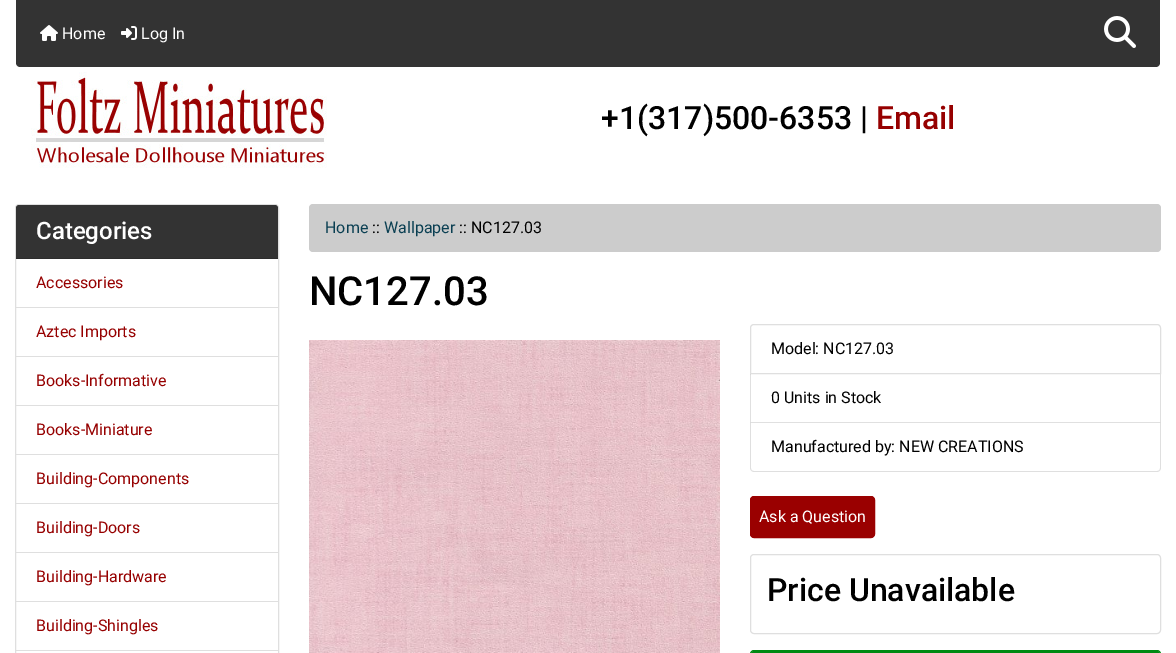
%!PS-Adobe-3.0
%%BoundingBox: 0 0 1176 653
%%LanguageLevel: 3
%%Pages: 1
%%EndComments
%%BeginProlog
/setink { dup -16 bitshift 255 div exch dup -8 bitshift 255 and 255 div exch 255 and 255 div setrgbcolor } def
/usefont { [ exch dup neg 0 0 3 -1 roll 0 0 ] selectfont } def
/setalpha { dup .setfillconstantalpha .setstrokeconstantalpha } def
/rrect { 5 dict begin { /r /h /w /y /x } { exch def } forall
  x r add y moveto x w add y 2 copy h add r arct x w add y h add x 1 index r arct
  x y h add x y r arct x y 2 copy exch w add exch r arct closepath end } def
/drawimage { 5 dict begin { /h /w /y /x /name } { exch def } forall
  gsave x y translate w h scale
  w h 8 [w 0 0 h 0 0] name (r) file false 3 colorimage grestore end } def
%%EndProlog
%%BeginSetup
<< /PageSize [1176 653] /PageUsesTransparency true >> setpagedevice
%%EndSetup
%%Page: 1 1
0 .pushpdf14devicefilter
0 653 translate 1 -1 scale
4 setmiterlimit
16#FFFFFF setink
0 0 1176 653 rectfill
16#333333 setink
16 0 moveto 1160 0 lineto 1160 63 lineto 1160 65 1158 67 1156 67 curveto 20 67 lineto 18 67 16 65 16 63 curveto closepath fill
(img1.raw) 40 25 18 16 drawimage
/Roboto-Regular 16 usefont
16#FFFFFF setink
62 39 moveto (Home) show
(img2.raw) 121 26 16 14 drawimage
141 39 moveto (Log In) show
(img3.raw) 1104 16 32 32 drawimage
(img4.raw) 31 72 296 96 drawimage
/Roboto-Medium 32 usefont
16#000000 setink
601 129 moveto (+1\(317\)500-6353 |) show
16#960000 setink
876 129 moveto (Email) show
16#DFDFDF setink
15.5 204.5 263 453 3.5 rrect stroke
16#333333 setink
19 205 moveto 275 205 lineto 276.5 205 278 206.5 278 208 curveto 278 259 lineto 16 259 lineto 16 208 lineto 16 206.5 17.5 205 19 205 curveto closepath fill
16#2D2D2D setink
16 258 262 1 rectfill
/Roboto-Medium 24 usefont
16#FFFFFF setink
36 239 moveto (Categories) show
16#DFDFDF setink
16 307 262 1 rectfill
/Roboto-Regular 16 usefont
16#960000 setink
36 288 moveto (Accessories) show
16#DFDFDF setink
16 356 262 1 rectfill
16#960000 setink
36 337 moveto (Aztec Imports) show
16#DFDFDF setink
16 405 262 1 rectfill
16#960000 setink
36 386 moveto (Books-Informative) show
16#DFDFDF setink
16 454 262 1 rectfill
16#960000 setink
36 435 moveto (Books-Miniature) show
16#DFDFDF setink
16 503 262 1 rectfill
16#960000 setink
36 484 moveto (Building-Components) show
16#DFDFDF setink
16 552 262 1 rectfill
16#960000 setink
36 533 moveto (Building-Doors) show
16#DFDFDF setink
16 601 262 1 rectfill
16#960000 setink
36 582 moveto (Building-Hardware) show
16#DFDFDF setink
16 650 262 1 rectfill
16#960000 setink
36 631 moveto (Building-Shingles) show
16#CCCCCC setink
309 204 852 48 4 rrect fill
16#0A3F52 setink
325 233 moveto (Home) show
16#000000 setink
372 233 moveto (::) show
16#0A3F52 setink
384 233 moveto (Wallpaper) show
16#000000 setink
459 233 moveto (:: NC127.03) show
/Roboto-Medium 40 usefont
309 305 moveto (NC127.03) show
(img5.raw) 309 340 411 313 drawimage
16#DFDFDF setink
754 324.5 moveto 1157 324.5 lineto 1159 324.5 1160.5 326 1160.5 328 curveto 1160.5 373.5 lineto 750.5 373.5 lineto 750.5 328 lineto 750.5 326 752 324.5 754 324.5 curveto closepath stroke
/Roboto-Regular 16 usefont
16#000000 setink
771 354 moveto (Model: NC127.03) show
16#DFDFDF setink
1161 374 moveto 1161 423 lineto 1160 422 lineto 1160 374 lineto closepath fill
0.12 setalpha
16#000000 setink
1161 423 moveto 750 423 lineto 751 422 lineto 1160 422 lineto closepath fill
750 423 moveto 750 374 lineto 751 374 lineto 751 422 lineto closepath fill
1 setalpha
771 403 moveto (0 Units in Stock) show
16#DFDFDF setink
750 423 moveto 1161 423 lineto 1161 468 lineto 1161 470 1159 472 1157 472 curveto 754 472 lineto 752 472 750 470 750 468 curveto closepath 751 423 moveto 1160 423 lineto 1160 468 lineto 1160 470 1159 471 1157 471 curveto 754 471 lineto 752 471 751 470 751 468 curveto closepath eofill
16#000000 setink
771 452 moveto (Manufactured by: NEW CREATIONS) show
16#9A0000 setink
750.5 496.5 124 41 3.5 rrect gsave fill grestore
stroke
16#FFFFFF setink
759 522 moveto (Ask a Question) show
16#DFDFDF setink
750.5 554.5 410 79 3.5 rrect stroke
/Roboto-Medium 32 usefont
16#000000 setink
767 601 moveto (Price Unavailable) show
16#008A13 setink
750.5 650.5 410 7 3.5 rrect stroke
754 651 moveto 1157 651 lineto 1158.5 651 1160 652.5 1160 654 curveto 1160 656 lineto 751 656 lineto 751 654 lineto 751 652.5 752.5 651 754 651 curveto closepath fill
.poppdf14devicefilter showpage
%%EOF
